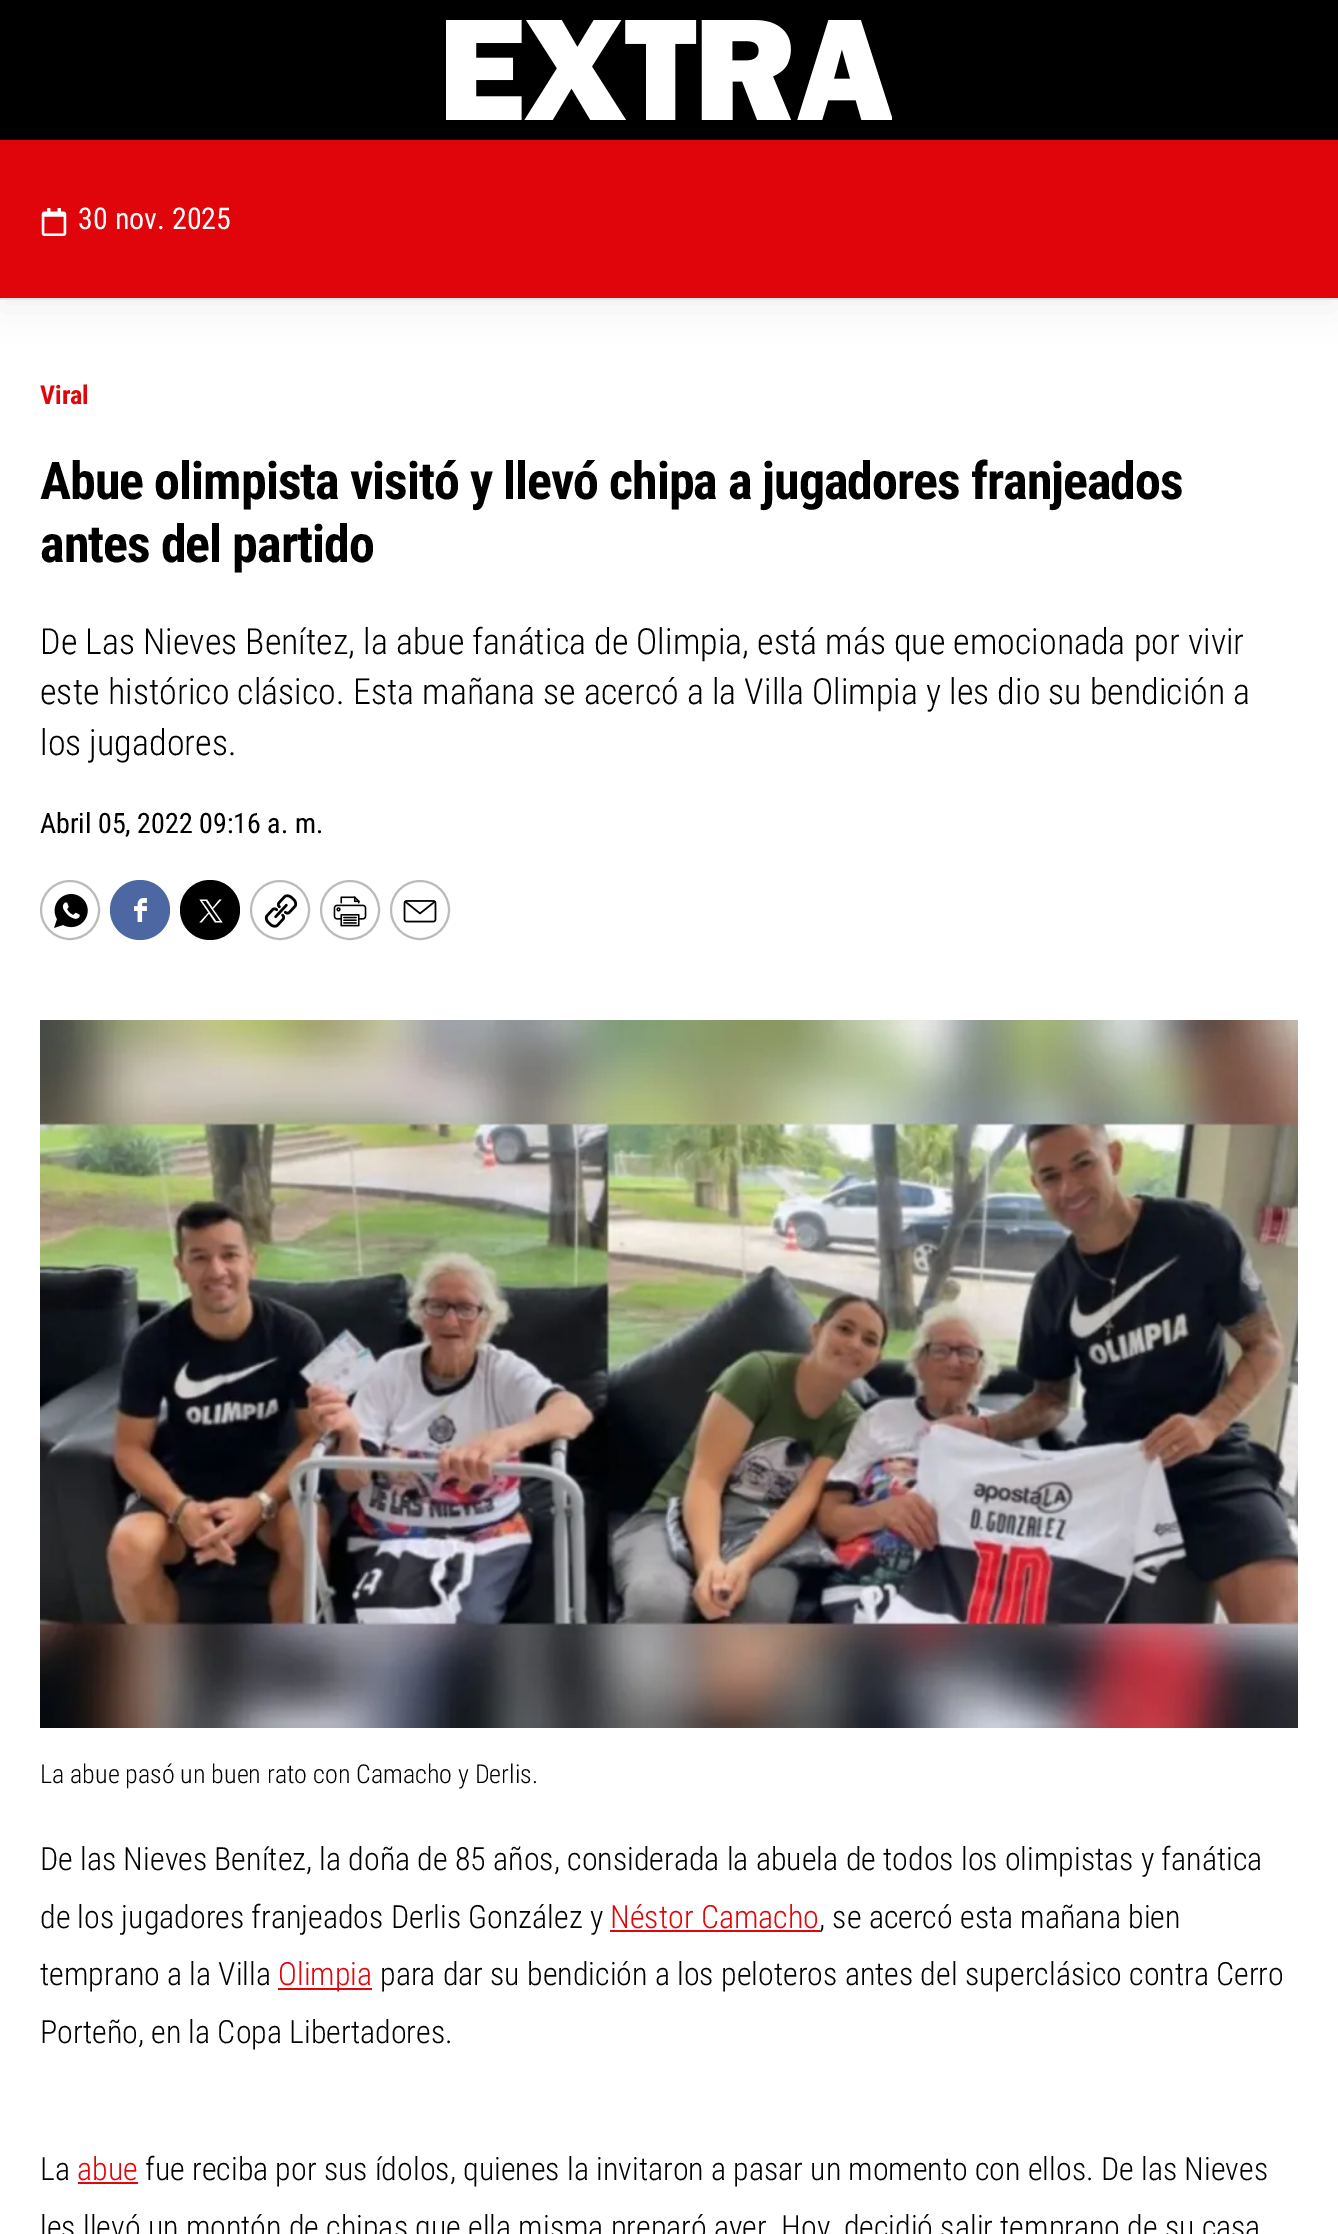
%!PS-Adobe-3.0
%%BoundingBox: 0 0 1338 2234
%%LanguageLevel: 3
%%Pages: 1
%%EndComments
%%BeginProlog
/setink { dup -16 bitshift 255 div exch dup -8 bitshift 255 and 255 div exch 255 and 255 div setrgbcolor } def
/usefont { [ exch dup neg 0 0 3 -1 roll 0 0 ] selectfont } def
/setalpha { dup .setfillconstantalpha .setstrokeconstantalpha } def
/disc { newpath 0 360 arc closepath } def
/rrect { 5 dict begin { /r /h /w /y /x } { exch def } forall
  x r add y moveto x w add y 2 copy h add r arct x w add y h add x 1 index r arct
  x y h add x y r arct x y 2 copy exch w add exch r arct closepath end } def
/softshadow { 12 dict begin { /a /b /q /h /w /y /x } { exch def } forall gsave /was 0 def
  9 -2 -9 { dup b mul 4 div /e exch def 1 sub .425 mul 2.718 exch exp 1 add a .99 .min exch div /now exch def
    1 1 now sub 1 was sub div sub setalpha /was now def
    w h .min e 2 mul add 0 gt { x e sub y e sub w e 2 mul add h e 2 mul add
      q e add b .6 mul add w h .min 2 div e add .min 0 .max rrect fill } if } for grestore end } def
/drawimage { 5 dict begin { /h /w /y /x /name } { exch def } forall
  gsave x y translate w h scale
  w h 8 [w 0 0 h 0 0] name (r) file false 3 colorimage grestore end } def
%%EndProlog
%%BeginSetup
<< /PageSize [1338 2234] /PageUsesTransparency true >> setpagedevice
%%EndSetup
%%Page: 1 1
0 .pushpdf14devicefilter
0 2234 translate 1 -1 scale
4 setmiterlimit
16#FFFFFF setink
0 0 1338 2234 rectfill
16#000000 setink
0 0 1338 140 rectfill
0 150 1338 160 0 20 0.05 softshadow
(img1.raw) 446 20 446 100 drawimage
16#E0040B setink
0 140 1338 158 rectfill
16#E6E6E6 setink
0 298 1338 2 rectfill
(img2.raw) 41 208 26 28 drawimage
/RobotoCondensed-Regular 30 usefont
16#FFFFFF setink
78 229 moveto (30 nov. 2025) show
/RobotoCondensed-Bold 26 usefont
16#E0040B setink
40 404 moveto (Viral) show
/RobotoCondensed-Bold 52 usefont
16#000000 setink
40 499 moveto -1 0 (Abue olimpista visitó y llevó chipa a jugadores franjeados) ashow
40 562 moveto -1 0 (antes del partido) ashow
/RobotoCondensed-Light 36 usefont
[
    [(De Las Nieves Benítez, la abue fanática de Olimpia, está más que emocionada por vivir) 40 654]
    [(este histórico clásico. Esta mañana se acercó a la Villa Olimpia y les dio su bendición a) 40 704]
    [(los jugadores.) 40 755]
] { aload pop moveto show } forall
/RobotoCondensed-Regular 28 usefont
40 833 moveto (Abril 05, 2022 09:16 a. m.) show
16#BBBBBB setink
2 setlinewidth
70 910 29 disc stroke
(img3.raw) 54 894 34 34 drawimage
16#4C67A1 setink
140 910 30 disc fill
(img4.raw) 134 898 13 24 drawimage
16#000000 setink
210 910 30 disc fill
16#FFFFFF setink
199.5 899.5 moveto 208.5 912.5 lineto 199.5 922.5 lineto 201.5 922.5 lineto 209 913.5 lineto 215 922.5 lineto 222.5 922.5 lineto 213 909 lineto 221.5 899.5 lineto 219.5 899.5 lineto 212.5 908 lineto 207 899.5 lineto closepath 202 901 moveto 206 901 lineto 220 921 lineto 216 921 lineto closepath eofill
16#BBBBBB setink
280 910 29 disc stroke
(img5.raw) 264 894 34 34 drawimage
350 910 29 disc stroke
(img6.raw) 333 896 34 31 drawimage
420 910 29 disc stroke
(img7.raw) 403 900 34 23 drawimage
(img8.raw) 40 1020 1258 708 drawimage
/RobotoCondensed-Light 26 usefont
16#000000 setink
40 1783 moveto (La abue pasó un buen rato con Camacho y Derlis.) show
/RobotoCondensed-Light 32 usefont
40 1870 moveto (De las Nieves Benítez, la doña de 85 años, considerada la abuela de todos los olimpistas y fanática) show
40 1928 moveto (de los jugadores franjeados Derlis González y) show
16#E0040B setink
610 1928 moveto (Néstor Camacho) show
610 1930 210 2 rectfill
16#000000 setink
819 1928 moveto (, se acercó esta mañana bien) show
40 1985 moveto (temprano a la Villa) show
16#E0040B setink
278 1988 94 2 rectfill
278 1985 moveto (Olimpia) show
16#000000 setink
[
    [(para dar su bendición a los peloteros antes del superclásico contra Cerro) 380 1985]
    [(Porteño, en la Copa Libertadores.) 40 2043]
    [(La) 40 2180]
] { aload pop moveto show } forall
16#E0040B setink
77 2180 moveto (abue) show
78 2182 60 2 rectfill
16#000000 setink
145 2180 moveto (fue reciba por sus ídolos, quienes la invitaron a pasar un momento con ellos. De las Nieves) show
40 2238 moveto (les llevó un montón de chipas que ella misma preparó ayer. Hoy, decidió salir temprano de su casa) show
.poppdf14devicefilter showpage
%%EOF
